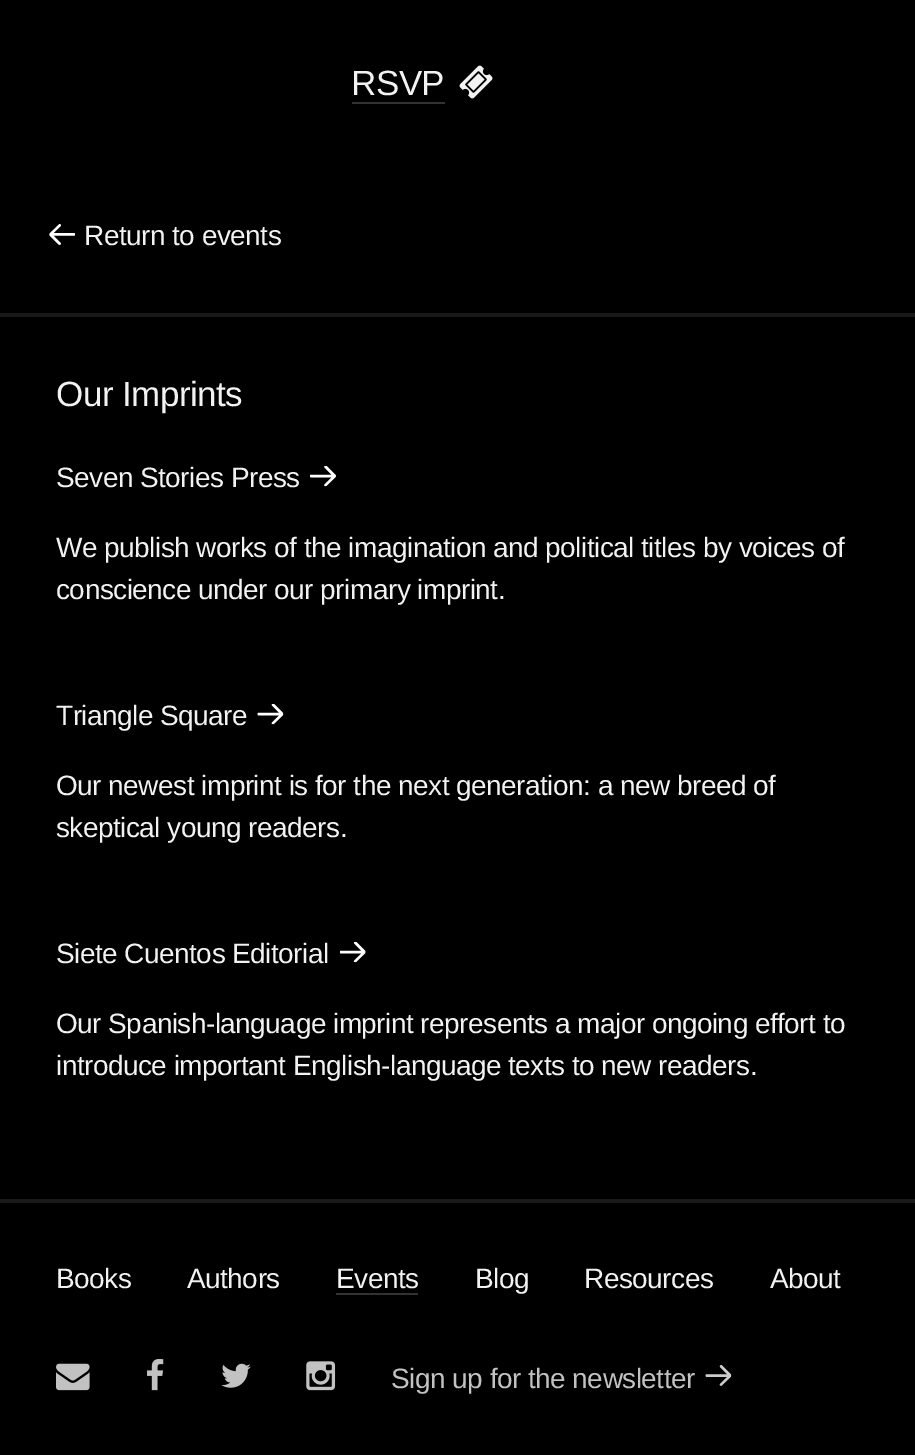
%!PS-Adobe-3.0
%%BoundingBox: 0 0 915 1455
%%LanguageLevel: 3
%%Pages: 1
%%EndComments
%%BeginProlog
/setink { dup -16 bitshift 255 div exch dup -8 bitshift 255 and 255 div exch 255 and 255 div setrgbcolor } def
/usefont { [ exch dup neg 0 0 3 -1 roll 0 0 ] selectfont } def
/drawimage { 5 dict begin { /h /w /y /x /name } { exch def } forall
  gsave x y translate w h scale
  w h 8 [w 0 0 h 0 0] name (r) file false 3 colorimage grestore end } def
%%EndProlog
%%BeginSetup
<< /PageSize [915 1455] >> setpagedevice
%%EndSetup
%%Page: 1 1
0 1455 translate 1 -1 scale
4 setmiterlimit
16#000000 setink
0 0 915 1455 rectfill
/LiberationSans-Regular 35 usefont
16#F2F2F2 setink
351 95 moveto -0.53 0 (RSVP) ashow
16#323232 setink
352 102 93 2 rectfill
(img1.raw) 459 65 34 34 drawimage
(img2.raw) 49 224 26 21 drawimage
/LiberationSans-Regular 28 usefont
16#F2F2F2 setink
84 245 moveto -0.53 0 (Return to events) ashow
16#191919 setink
0 313 915 4 rectfill
/LiberationSans-Regular 35 usefont
16#F2F2F2 setink
56 406 moveto -0.53 0 (Our Imprints) ashow
/LiberationSans-Regular 28 usefont
56 487 moveto -0.53 0 (Seven Stories Press) ashow
(img3.raw) 310 466 26 21 drawimage
56 557 moveto -0.53 0 (We publish works of the imagination and political titles by voices of) ashow
56 599 moveto -0.53 0 (conscience under our primary imprint.) ashow
56 725 moveto -0.53 0 (Triangle Square) ashow
(img4.raw) 257 704 27 21 drawimage
56 795 moveto -0.53 0 (Our newest imprint is for the next generation: a new breed of) ashow
56 837 moveto -0.53 0 (skeptical young readers.) ashow
56 963 moveto -0.53 0 (Siete Cuentos Editorial) ashow
(img5.raw) 340 942 26 21 drawimage
56 1033 moveto -0.53 0 (Our Spanish-language imprint represents a major ongoing effort to) ashow
56 1075 moveto -0.53 0 (introduce important English-language texts to new readers.) ashow
16#191919 setink
0 1199 915 4 rectfill
16#F2F2F2 setink
56 1288 moveto -0.53 0 (Books) ashow
187 1288 moveto -0.53 0 (Authors) ashow
336 1288 moveto -0.53 0 (Events) ashow
16#323232 setink
336 1293 82 2 rectfill
16#F2F2F2 setink
475 1288 moveto -0.53 0 (Blog) ashow
584 1288 moveto -0.53 0 (Resources) ashow
770 1288 moveto -0.53 0 (About) ashow
(img6.raw) 56 1363 34 28 drawimage
(img7.raw) 147 1359 17 32 drawimage
(img8.raw) 221 1363 30 25 drawimage
(img9.raw) 306 1361 30 30 drawimage
16#C2C2C2 setink
391 1388 moveto -0.53 0 (Sign up for the newsletter) ashow
(img10.raw) 705 1365 27 21 drawimage
showpage
%%EOF
